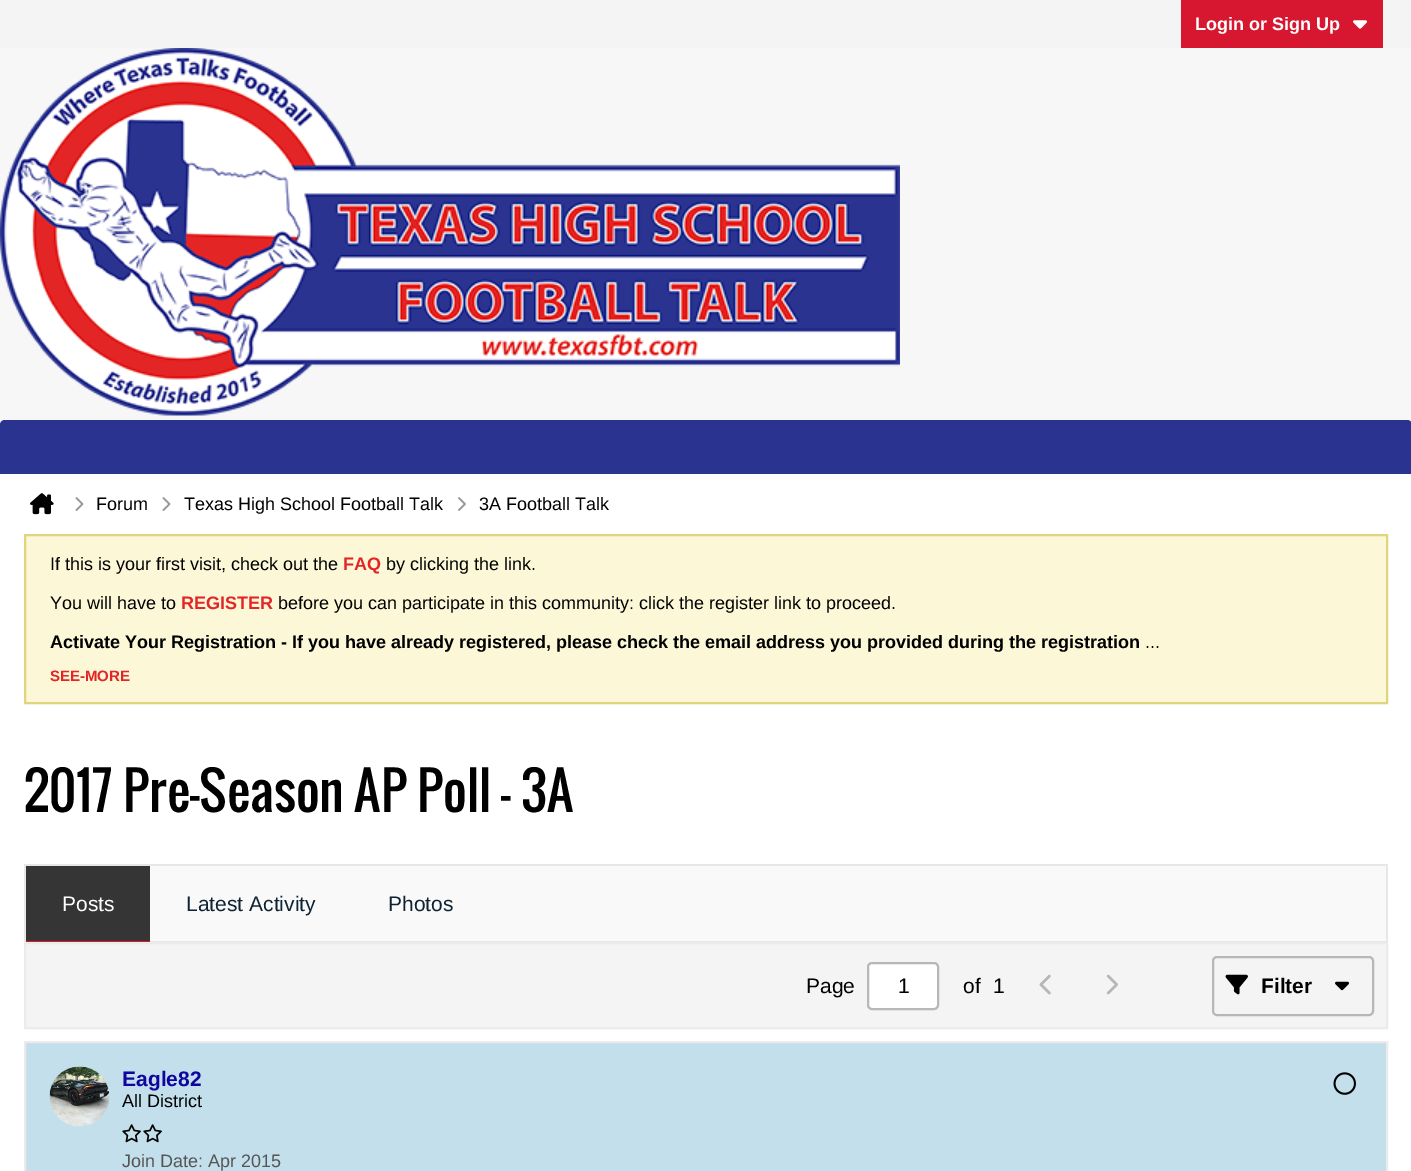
%!PS-Adobe-3.0
%%BoundingBox: 0 0 1411 1171
%%LanguageLevel: 3
%%Pages: 1
%%EndComments
%%BeginProlog
/setink { dup -16 bitshift 255 div exch dup -8 bitshift 255 and 255 div exch 255 and 255 div setrgbcolor } def
/usefont { [ exch dup neg 0 0 3 -1 roll 0 0 ] selectfont } def
/rrect { 5 dict begin { /r /h /w /y /x } { exch def } forall
  x r add y moveto x w add y 2 copy h add r arct x w add y h add x 1 index r arct
  x y h add x y r arct x y 2 copy exch w add exch r arct closepath end } def
/drawimage { 5 dict begin { /h /w /y /x /name } { exch def } forall
  gsave x y translate w h scale
  w h 8 [w 0 0 h 0 0] name (r) file false 3 colorimage grestore end } def
%%EndProlog
%%BeginSetup
<< /PageSize [1411 1171] >> setpagedevice
%%EndSetup
%%Page: 1 1
0 1171 translate 1 -1 scale
4 setmiterlimit
16#F7F7F7 setink
0 0 1411 1171 rectfill
16#F5F4F4 setink
0 0 1411 48 rectfill
16#D71730 setink
1181 0 202 48 rectfill
/LiberationSans-Bold 18 usefont
16#FFFFFF setink
1195 30 moveto (Login or Sign Up) show
(img1.raw) 1353 20 14 9 drawimage
(img2.raw) 0 48 900 368 drawimage
16#2A338F setink
5 420 moveto 1407 420 lineto 1410 420 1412 422 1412 425 curveto 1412 474 lineto 0 474 lineto 0 425 lineto 0 422 2 420 5 420 curveto closepath fill
16#FFFFFF setink
0 474 1411 697 rectfill
(img3.raw) 30 493 24 22 drawimage
(img4.raw) 75 497 9 14 drawimage
/LiberationSans-Regular 18 usefont
16#000000 setink
96 510 moveto (Forum) show
(img4.raw) 162 497 9 14 drawimage
184 510 moveto (Texas High School Football Talk) show
(img5.raw) 458 497 8 14 drawimage
479 510 moveto (3A Football Talk) show
16#FCF7D7 setink
25 535 moveto 1387 535 lineto 1387 703 lineto 25 703 lineto closepath gsave fill grestore
16#E1D47E setink
2 setlinewidth
stroke
16#000000 setink
50 570 moveto (If this is your first visit, check out the) show
/LiberationSans-Bold 18 usefont
16#E32526 setink
343 570 moveto (FAQ) show
/LiberationSans-Regular 18 usefont
16#000000 setink
386 570 moveto (by clicking the link.) show
50 609 moveto (You will have to) show
/LiberationSans-Bold 18 usefont
16#E32526 setink
181 609 moveto (REGISTER) show
/LiberationSans-Regular 18 usefont
16#000000 setink
278 609 moveto (before you can participate in this community: click the register link to proceed.) show
/LiberationSans-Bold 18 usefont
50 648 moveto (Activate Your Registration - If you have already registered, please check the email address you provided during the registration) show
/LiberationSans-Regular 18 usefont
1145 648 moveto (...) show
/LiberationSans-Bold 15 usefont
16#E32526 setink
50 681 moveto (SEE-MORE) show
/Oswald-Regular 51 usefont
16#000000 setink
24 812 moveto (2017 Pre-Season AP Poll - 3A) show
[
    [150 866 1236 75 16#F9F9F9]
    [24 864 1364 2 16#E7E7E7]
    [1386 864 2 80 16#E7E7E7]
    [150 941 1238 1 16#E7E7E7]
    [24 864 2 80 16#E7E7E7]
    [26 866 124 75 16#353535]
    [26 941 124 1 16#D71730]
] { aload pop setink rectfill } forall
/LiberationSans-Regular 21 usefont
16#FFFFFF setink
62 911 moveto (Posts) show
16#0F2332 setink
186 911 moveto (Latest Activity) show
388 911 moveto (Photos) show
16#F5F4F4 setink
25 943 moveto 1387 943 lineto 1387 1028 lineto 25 1028 lineto closepath gsave fill grestore
16#ECEAEA setink
stroke
16#000000 setink
806 993 moveto (Page) show
16#FFFFFF setink
868 963 70 46 4 rrect gsave fill grestore
16#B7B7B7 setink
stroke
16#000000 setink
[
    [(1) 898 993]
    [(of) 963 993]
    [(1) 993 993]
] { aload pop moveto show } forall
(img6.raw) 1039 974 12 21 drawimage
(img7.raw) 1106 974 12 21 drawimage
16#B7B7B7 setink
1213 957 160 58 4 rrect stroke
(img8.raw) 1225 974 23 21 drawimage
/LiberationSans-Bold 21 usefont
16#000000 setink
1261 993 moveto (Filter) show
(img9.raw) 1335 981 14 10 drawimage
16#C2DFEB setink
25 1042 moveto 1387 1042 lineto 1387 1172 lineto 25 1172 lineto closepath gsave fill grestore
16#ECEAEA setink
stroke
(img10.raw) 49 1066 61 61 drawimage
16#10069F setink
122 1086 moveto (Eagle82) show
/LiberationSans-Regular 18 usefont
16#000000 setink
122 1107 moveto (All District) show
(img11.raw) 122 1124 19 19 drawimage
(img11.raw) 143 1124 19 19 drawimage
16#555555 setink
122 1167 moveto (Join Date: Apr 2015) show
(img12.raw) 1333 1072 23 23 drawimage
showpage
%%EOF
